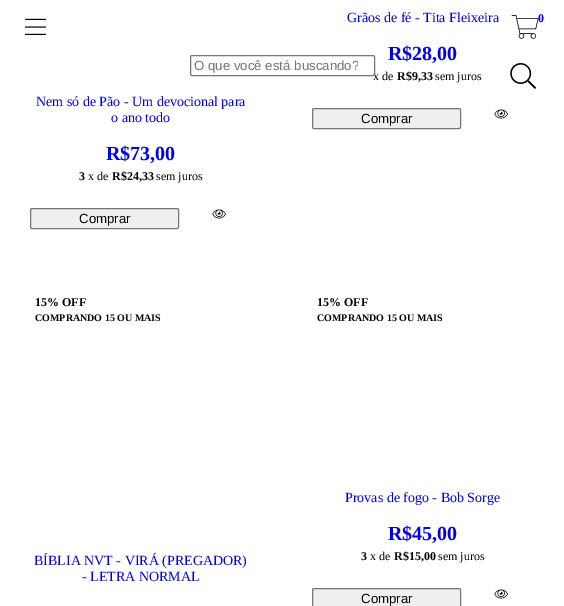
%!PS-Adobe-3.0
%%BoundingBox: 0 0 564 606
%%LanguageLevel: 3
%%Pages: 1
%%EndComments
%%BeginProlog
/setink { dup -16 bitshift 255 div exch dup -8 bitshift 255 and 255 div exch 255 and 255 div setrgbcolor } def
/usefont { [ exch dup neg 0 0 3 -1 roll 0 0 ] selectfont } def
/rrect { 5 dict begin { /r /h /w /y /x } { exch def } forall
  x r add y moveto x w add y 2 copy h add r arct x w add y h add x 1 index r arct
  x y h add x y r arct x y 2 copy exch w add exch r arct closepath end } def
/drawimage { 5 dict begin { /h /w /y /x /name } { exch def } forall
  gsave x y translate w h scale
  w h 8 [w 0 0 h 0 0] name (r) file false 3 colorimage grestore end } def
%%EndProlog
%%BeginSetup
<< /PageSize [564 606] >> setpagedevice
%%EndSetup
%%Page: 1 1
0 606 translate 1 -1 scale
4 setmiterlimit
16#FFFFFF setink
0 0 564 606 rectfill
/LiberationSerif-Regular 14 usefont
16#0000EE setink
347 22 moveto (Grãos de fé - Tita Fleixeira) show
/LiberationSerif-Bold 20 usefont
388 60 moveto (R$28,00) show
/LiberationSerif-Regular 12 usefont
16#000000 setink
373 80 moveto (x de) show
/LiberationSerif-Bold 12 usefont
397 80 moveto (R$9,33) show
/LiberationSerif-Regular 12 usefont
435 80 moveto (sem juros) show
16#EFEFEF setink
312.5 108.5 148 20 1.5 rrect gsave fill grestore
16#767676 setink
stroke
/LiberationSans-Regular 13.25 usefont
16#000000 setink
361 123 moveto (Comprar) show
(img1.raw) 494 109 14 10 drawimage
/LiberationSerif-Regular 14 usefont
16#0000EE setink
36 106 moveto (Nem só de Pão - Um devocional para) show
111 122 moveto (o ano todo) show
/LiberationSerif-Bold 20 usefont
106 160 moveto (R$73,00) show
/LiberationSerif-Bold 12 usefont
16#000000 setink
79 180 moveto (3) show
/LiberationSerif-Regular 12 usefont
88 180 moveto (x de) show
/LiberationSerif-Bold 12 usefont
112 180 moveto (R$24,33) show
/LiberationSerif-Regular 12 usefont
156 180 moveto (sem juros) show
16#EFEFEF setink
30.5 208.5 148 20 1.5 rrect gsave fill grestore
16#767676 setink
stroke
/LiberationSans-Regular 13.25 usefont
16#000000 setink
79 223 moveto (Comprar) show
(img1.raw) 212 209 14 10 drawimage
/LiberationSerif-Bold 12 usefont
35 306 moveto (15% OFF) show
/LiberationSerif-Bold 10 usefont
35 321 moveto (COMPRANDO 15 OU MAIS) show
/LiberationSerif-Regular 14 usefont
16#0000EE setink
34 565 moveto (BÍBLIA NVT - VIRÁ \(PREGADOR\)) show
82 581 moveto (- LETRA NORMAL) show
/LiberationSerif-Bold 12 usefont
16#000000 setink
317 306 moveto (15% OFF) show
/LiberationSerif-Bold 10 usefont
317 321 moveto (COMPRANDO 15 OU MAIS) show
/LiberationSerif-Regular 14 usefont
16#0000EE setink
345 502 moveto (Provas de fogo - Bob Sorge) show
/LiberationSerif-Bold 20 usefont
388 540 moveto (R$45,00) show
/LiberationSerif-Bold 12 usefont
16#000000 setink
361 560 moveto (3) show
/LiberationSerif-Regular 12 usefont
370 560 moveto (x de) show
/LiberationSerif-Bold 12 usefont
394 560 moveto (R$15,00) show
/LiberationSerif-Regular 12 usefont
438 560 moveto (sem juros) show
16#EFEFEF setink
312.5 588.5 148 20 1.5 rrect gsave fill grestore
16#767676 setink
stroke
/LiberationSans-Regular 13.25 usefont
16#000000 setink
361 603 moveto (Comprar) show
(img1.raw) 494 589 14 10 drawimage
(img2.raw) 25 18 21 17 drawimage
(img3.raw) 511 15 28 24 drawimage
/LiberationSerif-Bold 12 usefont
16#0000EE setink
538 22 moveto (0) show
16#FFFFFF setink
190.5 55.5 184 20 1.5 rrect gsave fill grestore
16#767676 setink
stroke
gsave
194 58 164 15 rectclip
/LiberationSans-Regular 13.25 usefont
16#757575 setink
194 70 moveto (O que você está buscando?) show
grestore
(img4.raw) 510 63 26 26 drawimage
showpage
%%EOF
